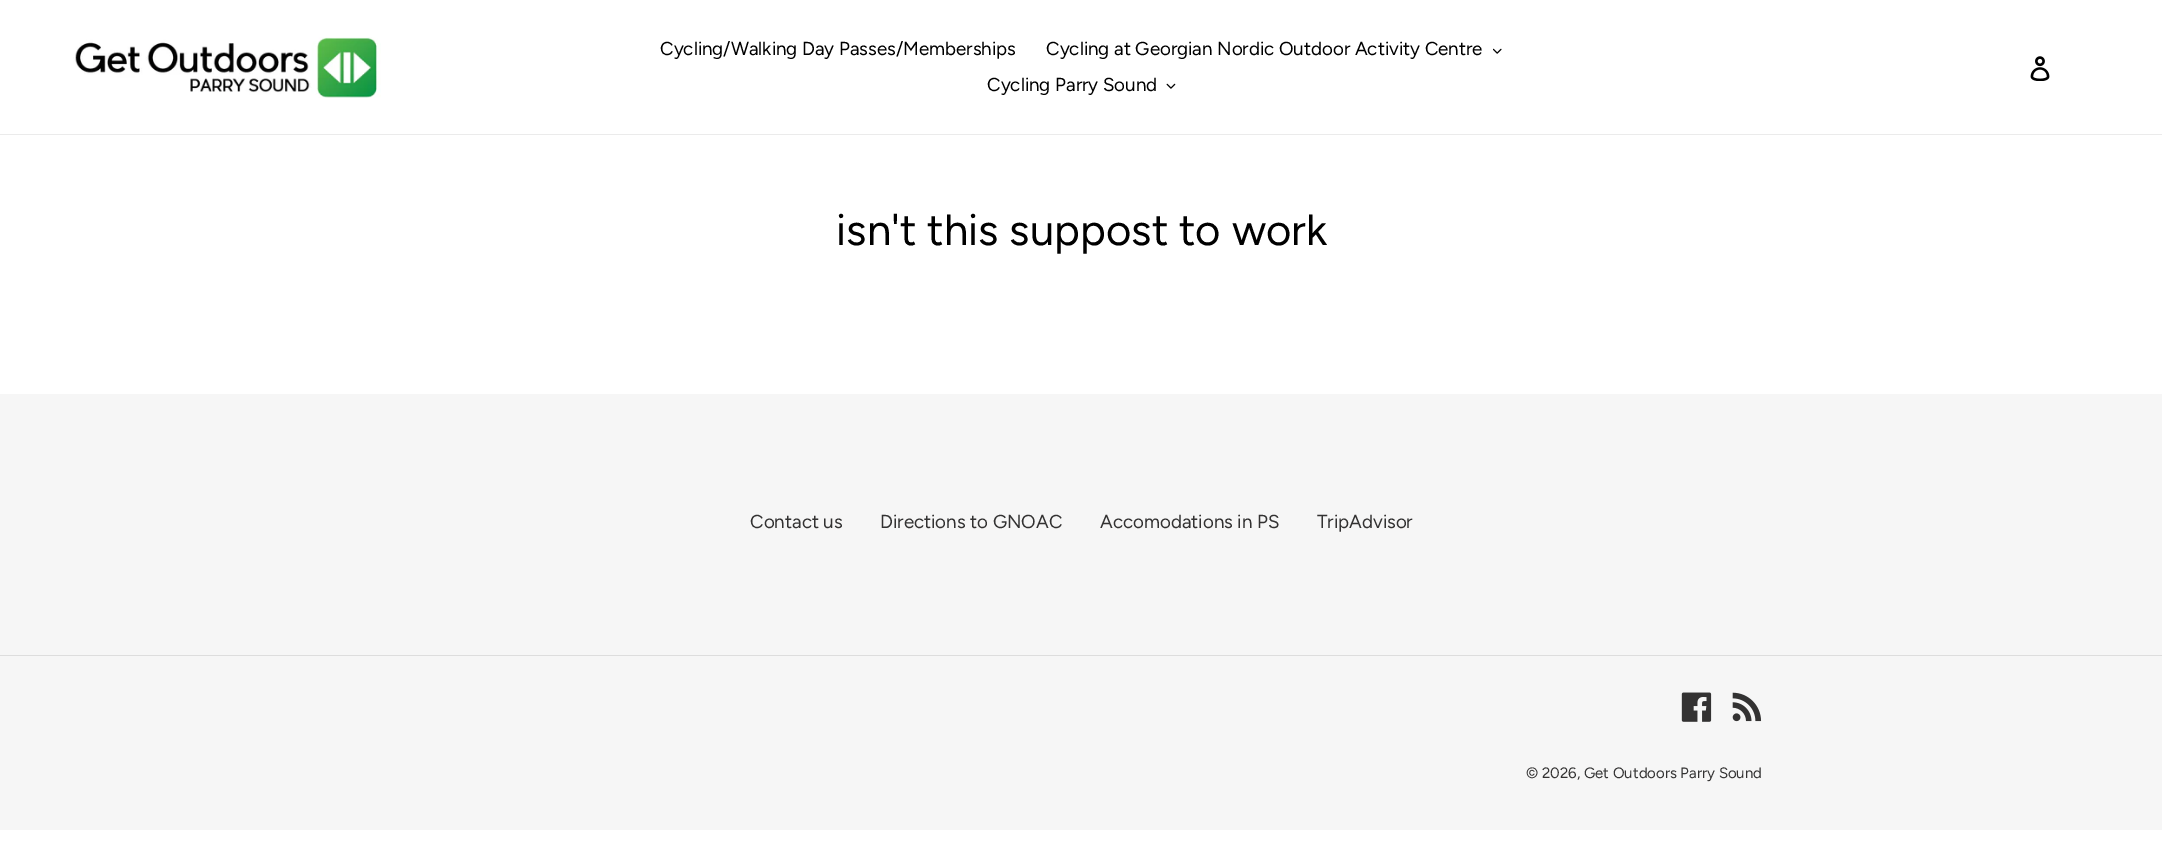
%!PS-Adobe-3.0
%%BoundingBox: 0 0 2162 858
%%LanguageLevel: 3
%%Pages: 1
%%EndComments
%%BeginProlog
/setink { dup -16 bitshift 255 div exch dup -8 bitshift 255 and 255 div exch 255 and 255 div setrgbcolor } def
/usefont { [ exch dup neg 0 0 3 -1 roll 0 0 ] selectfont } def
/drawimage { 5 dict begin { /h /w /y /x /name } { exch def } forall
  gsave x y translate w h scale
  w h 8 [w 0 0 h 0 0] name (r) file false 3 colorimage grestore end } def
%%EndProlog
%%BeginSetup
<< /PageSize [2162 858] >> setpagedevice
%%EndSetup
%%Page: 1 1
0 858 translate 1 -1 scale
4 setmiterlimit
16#FFFFFF setink
0 0 2162 858 rectfill
16#EBEBEB setink
0 134 2162 1 rectfill
(img1.raw) 73 37 308 61 drawimage
/Figtree-Regular 18.75 usefont
16#000000 setink
660 55 moveto (Cycling/Walking Day Passes/Memberships) show
1046 55 moveto (Cycling at Georgian Nordic Outdoor Activity Centre) show
(img2.raw) 1493 48 9 6 drawimage
987 91 moveto (Cycling Parry Sound) show
(img3.raw) 1166 83 10 6 drawimage
(img4.raw) 2030 56 20 25 drawimage
/Figtree-Regular 43.75 usefont
836 245 moveto (isn't this suppost to work) show
16#F6F6F6 setink
0 394 2162 436 rectfill
/Figtree-Regular 18.75 usefont
16#333232 setink
[
    [(Contact us) 750 528]
    [(Directions to GNOAC) 880 528]
    [(Accomodations in PS) 1100 528]
    [(TripAdvisor) 1317 528]
] { aload pop moveto show } forall
16#DDDDDD setink
0 655 2162 1 rectfill
(img5.raw) 1681 692 31 30 drawimage
(img6.raw) 1732 692 30 30 drawimage
/Figtree-Regular 15 usefont
16#333232 setink
1526 778 moveto (© 2026, Get Outdoors Parry Sound) show
showpage
%%EOF
